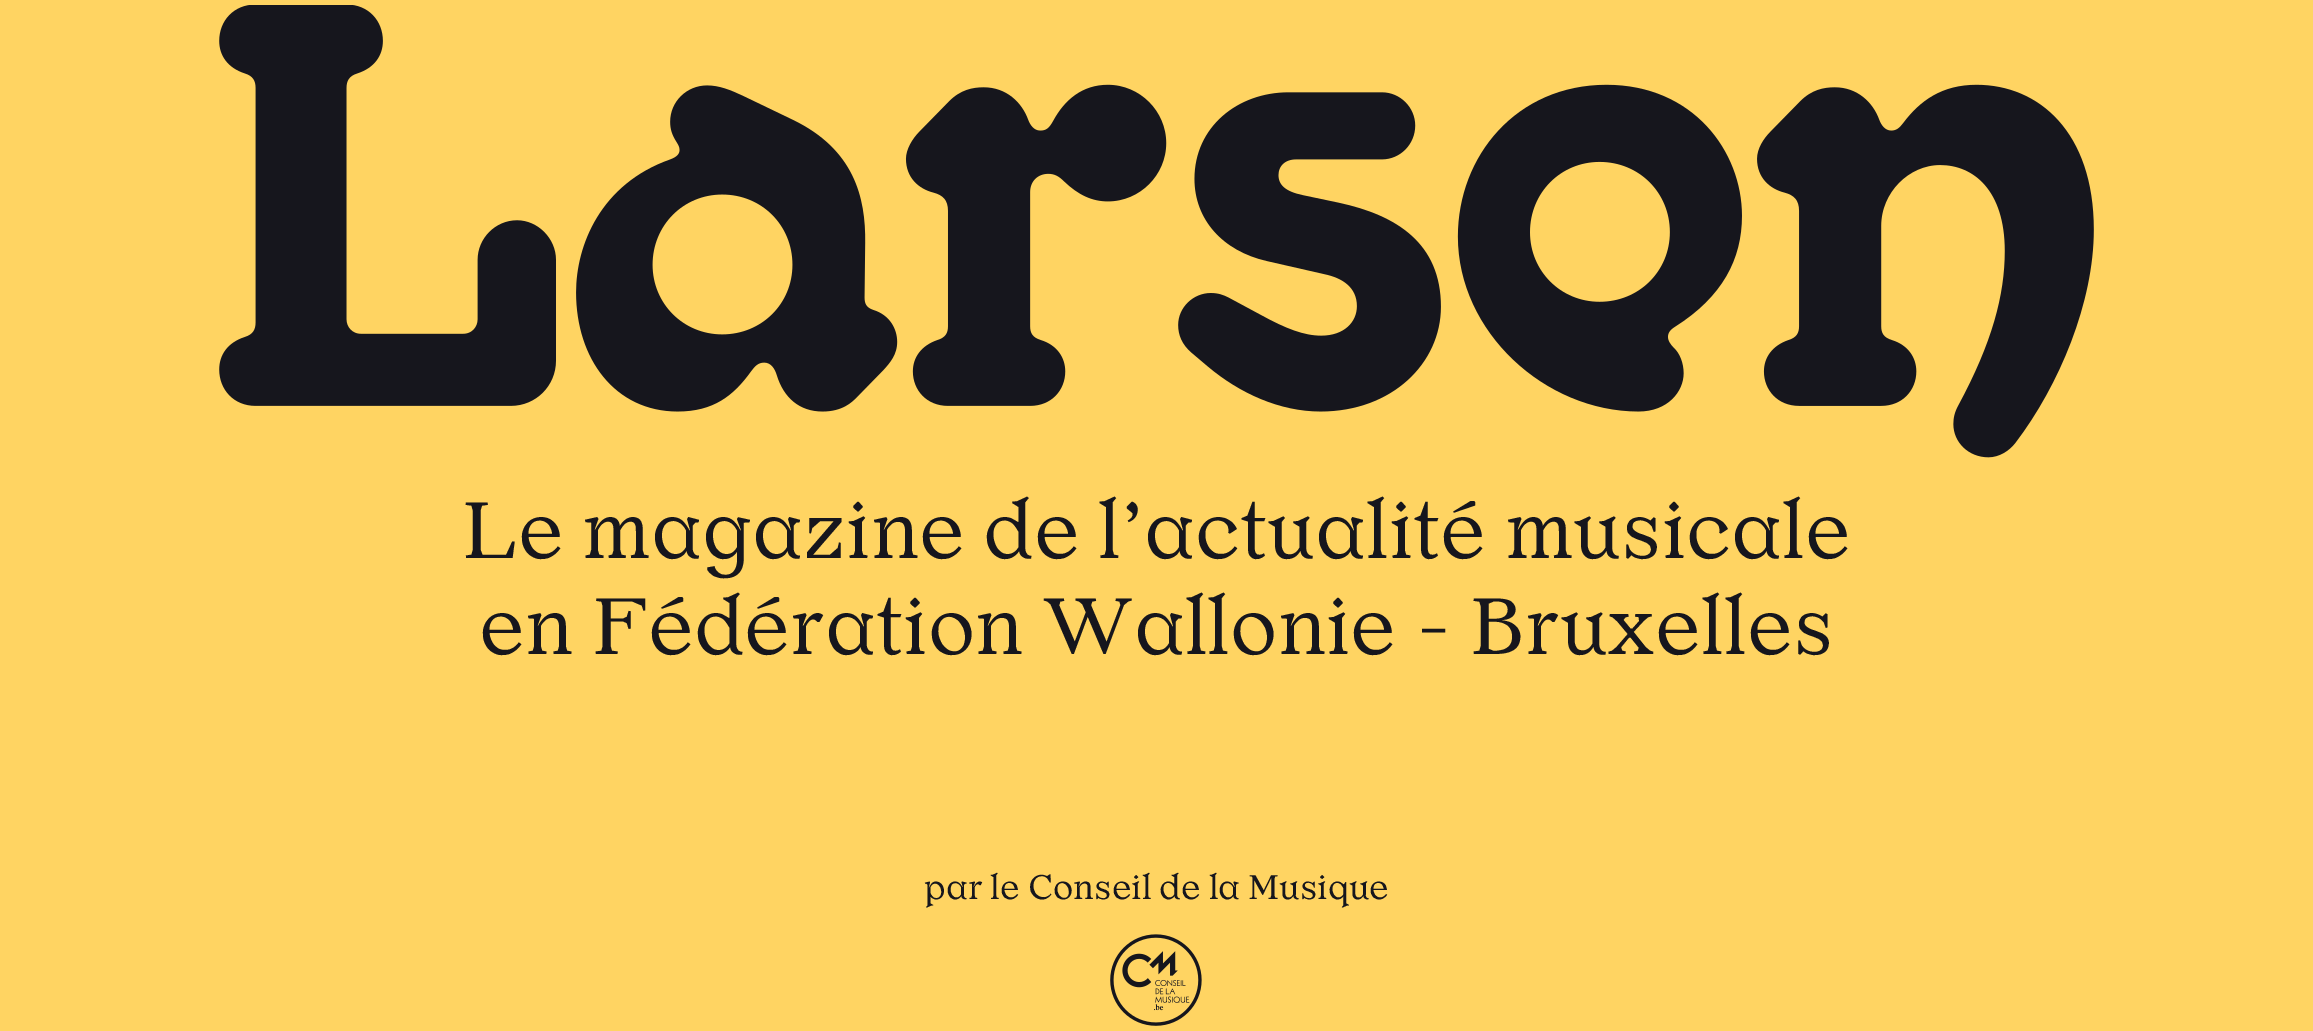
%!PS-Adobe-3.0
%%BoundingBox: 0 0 2313 1031
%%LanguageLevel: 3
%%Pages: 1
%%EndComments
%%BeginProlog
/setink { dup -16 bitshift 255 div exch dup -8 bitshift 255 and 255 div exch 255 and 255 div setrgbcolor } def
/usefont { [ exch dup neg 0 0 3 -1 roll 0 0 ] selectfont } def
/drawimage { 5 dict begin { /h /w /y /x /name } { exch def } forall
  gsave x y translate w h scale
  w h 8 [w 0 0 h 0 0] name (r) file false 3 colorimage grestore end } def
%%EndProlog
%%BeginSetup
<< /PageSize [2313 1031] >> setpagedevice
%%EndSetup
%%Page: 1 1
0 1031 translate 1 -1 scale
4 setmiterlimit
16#FFD462 setink
0 0 2313 1031 rectfill
(img1.raw) 219 5 1875 453 drawimage
/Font-Light 84 usefont
16#16161D setink
462 558 moveto (Le magazine de l’actualité musicale) show
479 654 moveto (en Fédération Wallonie - Bruxelles) show
/Font-Light 36 usefont
924 899 moveto (par le Conseil de la Musique) show
(img2.raw) 1110 934 92 92 drawimage
showpage
%%EOF
